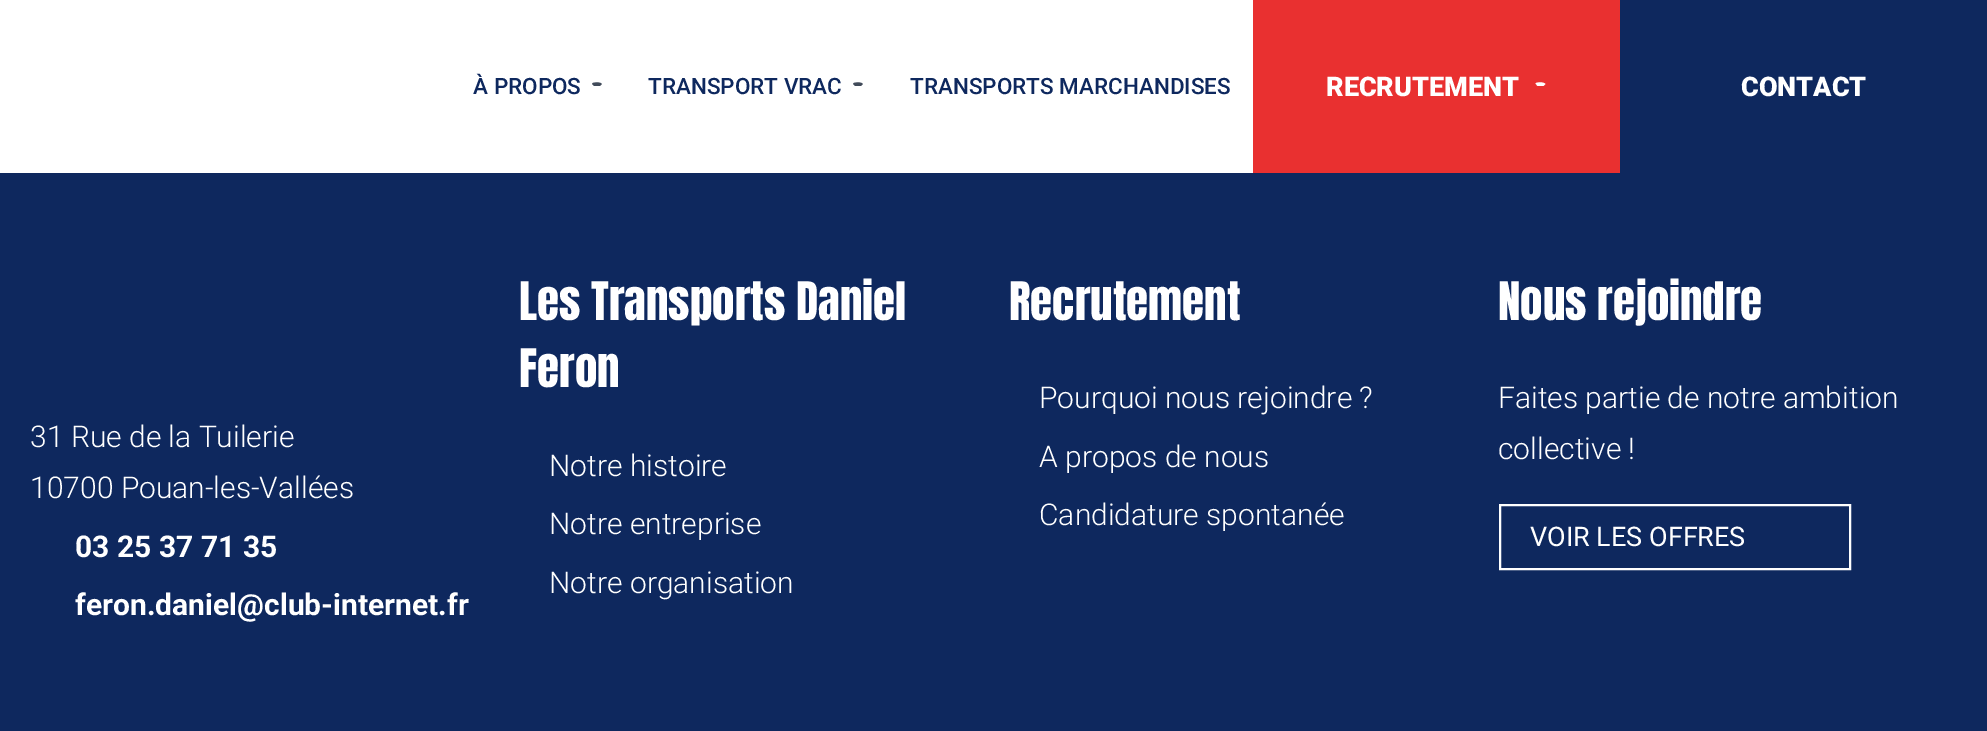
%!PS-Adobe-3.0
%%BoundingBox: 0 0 1987 731
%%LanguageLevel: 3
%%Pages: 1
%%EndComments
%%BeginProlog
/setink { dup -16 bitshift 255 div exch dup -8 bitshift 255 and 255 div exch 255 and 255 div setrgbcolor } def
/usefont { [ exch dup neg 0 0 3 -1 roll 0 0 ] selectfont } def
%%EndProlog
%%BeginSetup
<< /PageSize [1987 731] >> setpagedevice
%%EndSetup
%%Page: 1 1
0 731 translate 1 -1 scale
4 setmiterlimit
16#0E285E setink
0 0 1987 731 rectfill
16#FFFFFF setink
0 0 1253 173 rectfill
/Roboto-Medium 22.5 usefont
16#0E285E setink
473 94 moveto (À PROPOS) show
16#414B5A setink
595 82.5 moveto 597.5 82.5 600 82 602 84 curveto 600 86 lineto 594 86 lineto 592 84 lineto 592.5 83 593.5 82.5 595 82.5 curveto closepath fill
16#0E285E setink
648 94 moveto (TRANSPORT VRAC) show
16#414B5A setink
856 82.5 moveto 858.5 82.5 861 82 863 84 curveto 861 86 lineto 855 86 lineto 853 84 lineto 853.5 83 854.5 82.5 856 82.5 curveto closepath fill
16#0E285E setink
910 94 moveto (TRANSPORTS MARCHANDISES) show
16#E93030 setink
1253 0 367 173 rectfill
/Roboto-Black 27 usefont
16#FFFFFF setink
1326 96 moveto (RECRUTEMENT) show
1538 82.5 moveto 1540.5 82.5 1543.5 82 1545.5 84 curveto 1543.5 86 lineto 1537.5 86 lineto 1535.5 83.5 lineto 1536 83 1537 82.5 1538 82.5 curveto closepath fill
1741 96 moveto (CONTACT) show
/Roboto-Light 30 usefont
30 447 moveto (31 Rue de la Tuilerie) show
30 498 moveto (10700 Pouan-les-Vallées) show
/Roboto-Bold 30 usefont
75 557 moveto (03 25 37 71 35) show
75 615 moveto (feron.daniel@club-internet.fr) show
/Anton-Regular 45 usefont
519 320 moveto (Les Transports Daniel) show
519 387 moveto (Feron) show
/Roboto-Light 30 usefont
[
    [(Notre histoire) 549 476]
    [(Notre entreprise) 549 534]
    [(Notre organisation) 549 593]
] { aload pop moveto show } forall
/Anton-Regular 45 usefont
1009 320 moveto (Recrutement) show
/Roboto-Light 30 usefont
[
    [(Pourquoi nous rejoindre ?) 1039 408]
    [(A propos de nous) 1039 467]
    [(Candidature spontanée) 1039 525]
] { aload pop moveto show } forall
/Anton-Regular 45 usefont
1498 320 moveto (Nous rejoindre) show
/Roboto-Light 30 usefont
1498 408 moveto (Faites partie de notre ambition) show
1498 459 moveto (collective !) show
2 setlinewidth
1500 505 350 64 rectstroke
/Roboto-Regular 27 usefont
1530 546 moveto (VOIR LES OFFRES) show
showpage
%%EOF
